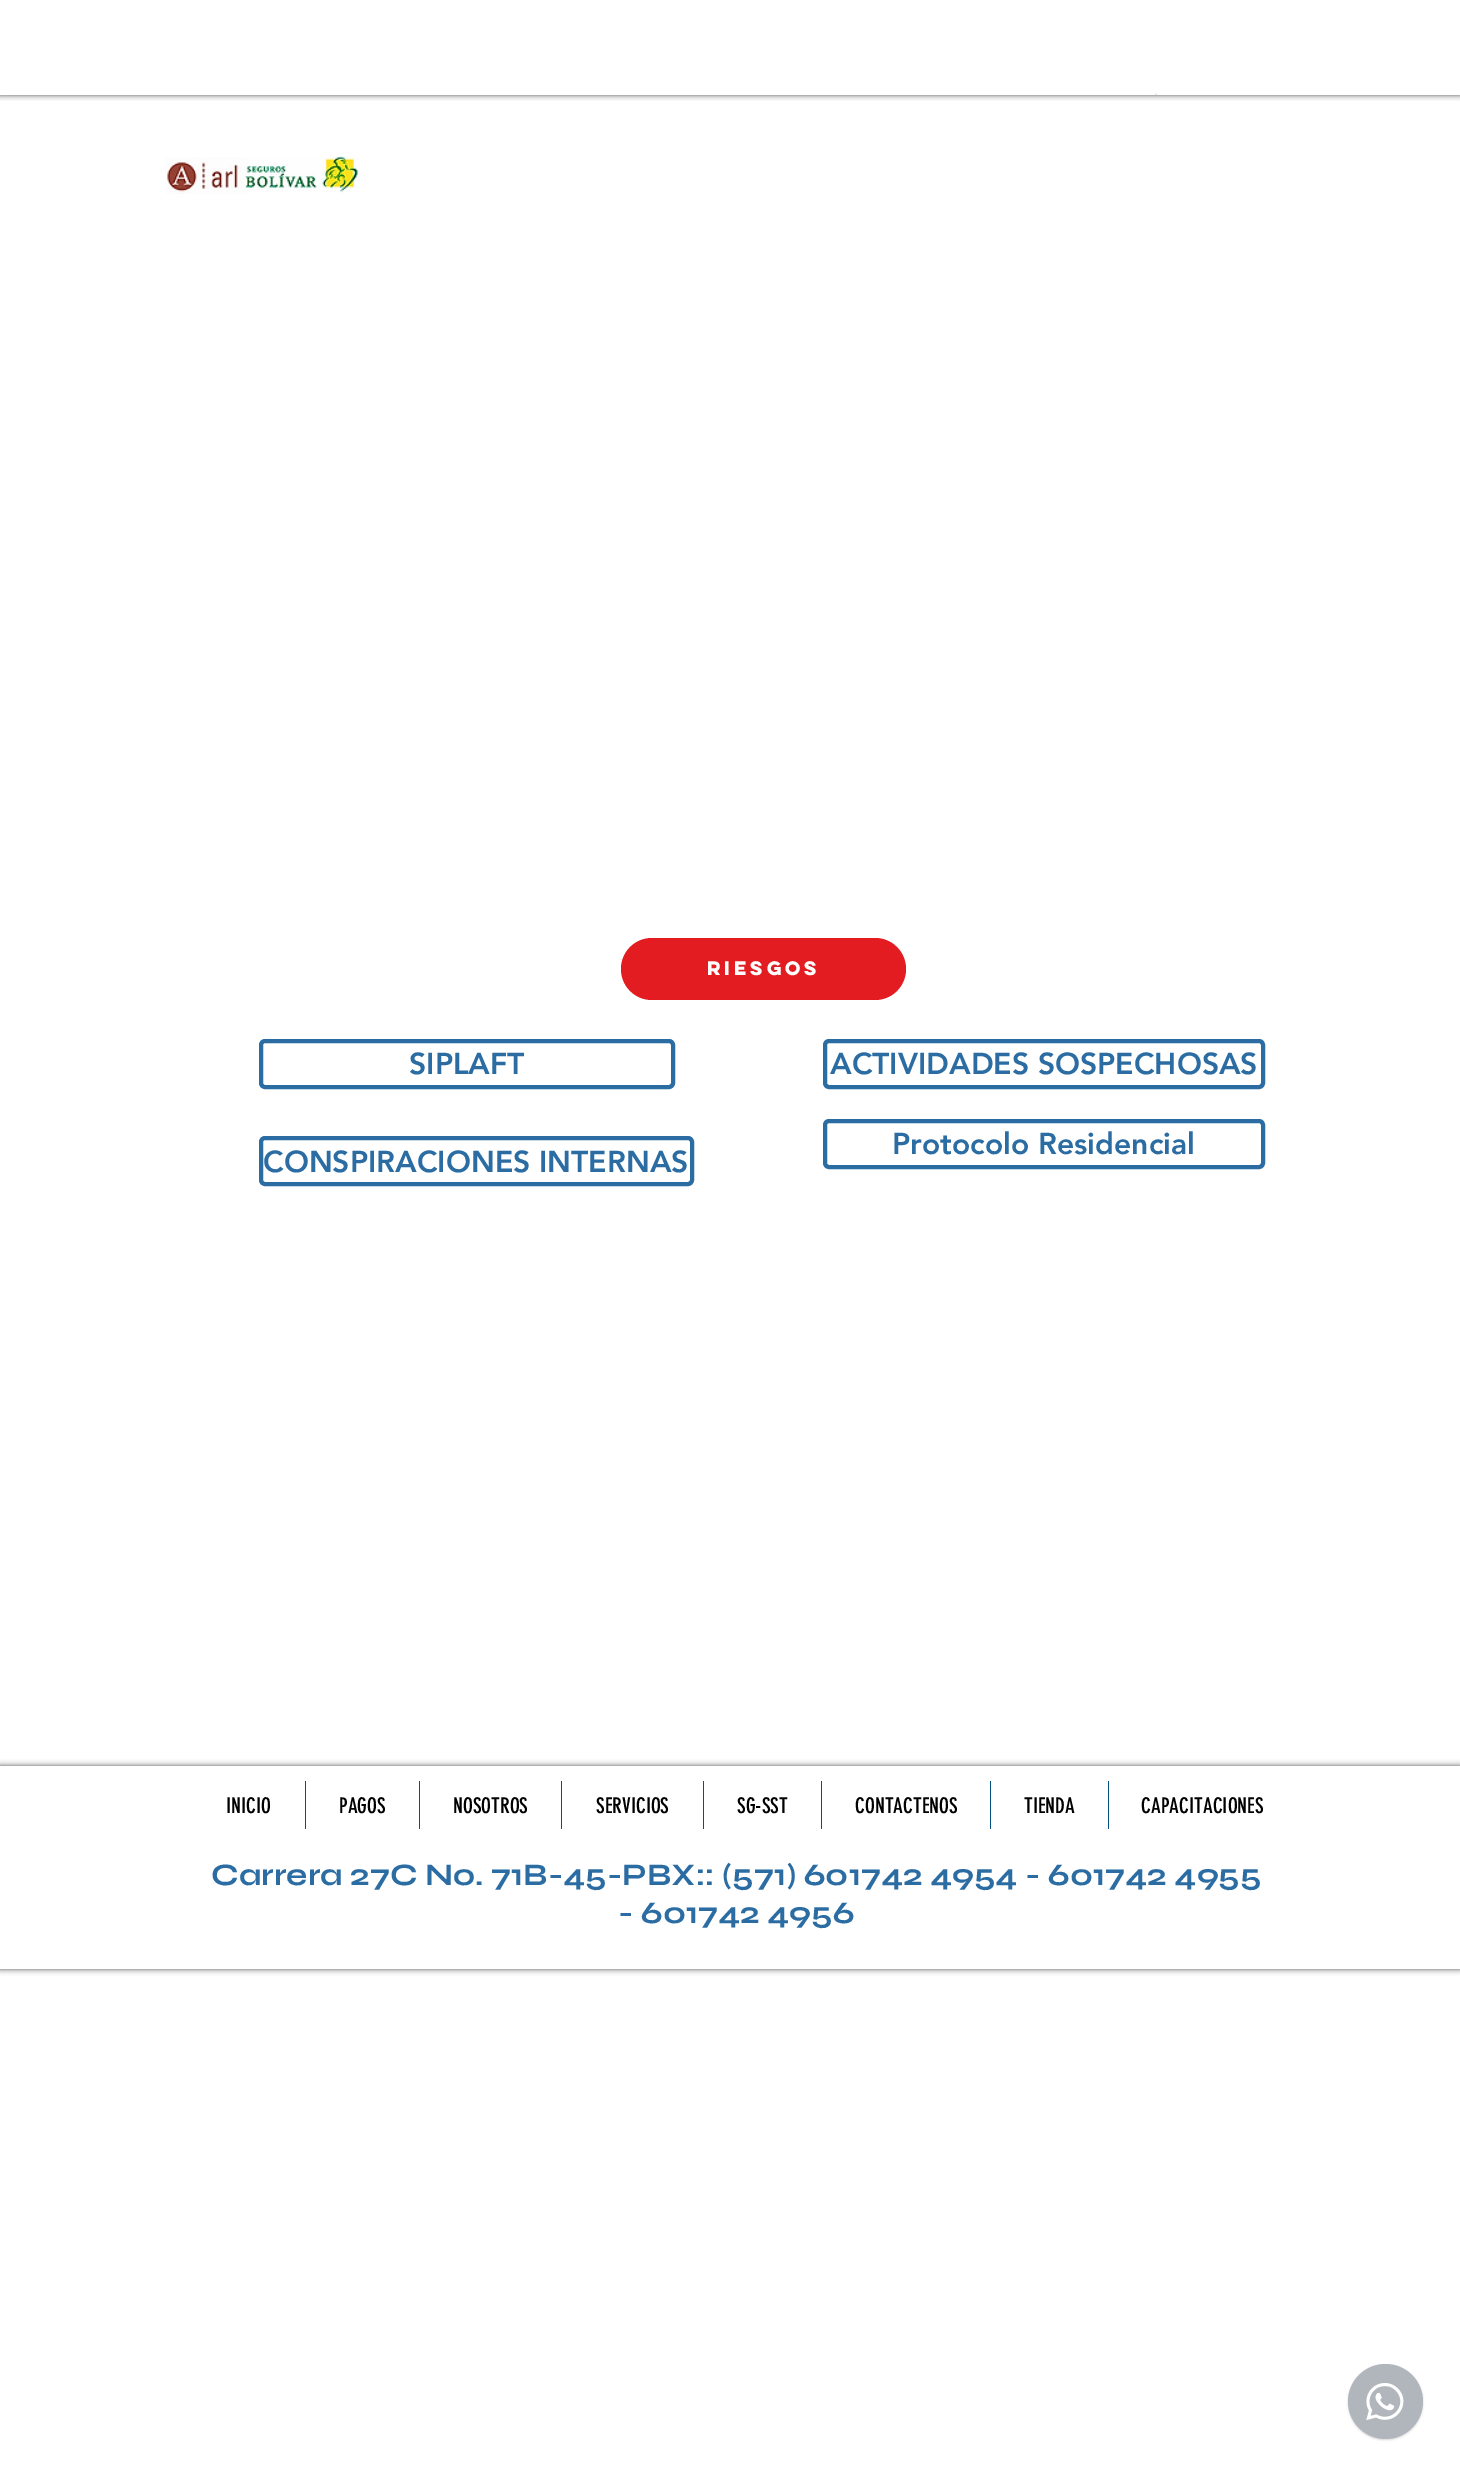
%!PS-Adobe-3.0
%%BoundingBox: 0 0 1460 2476
%%LanguageLevel: 3
%%Pages: 1
%%EndComments
%%BeginProlog
/setink { dup -16 bitshift 255 div exch dup -8 bitshift 255 and 255 div exch 255 and 255 div setrgbcolor } def
/usefont { [ exch dup neg 0 0 3 -1 roll 0 0 ] selectfont } def
/setalpha { dup .setfillconstantalpha .setstrokeconstantalpha } def
/disc { newpath 0 360 arc closepath } def
/rrect { 5 dict begin { /r /h /w /y /x } { exch def } forall
  x r add y moveto x w add y 2 copy h add r arct x w add y h add x 1 index r arct
  x y h add x y r arct x y 2 copy exch w add exch r arct closepath end } def
/softshadow { 12 dict begin { /a /b /q /h /w /y /x } { exch def } forall gsave /was 0 def
  9 -2 -9 { dup b mul 4 div /e exch def 1 sub .425 mul 2.718 exch exp 1 add a .99 .min exch div /now exch def
    1 1 now sub 1 was sub div sub setalpha /was now def
    w h .min e 2 mul add 0 gt { x e sub y e sub w e 2 mul add h e 2 mul add
      q e add b .6 mul add w h .min 2 div e add .min 0 .max rrect fill } if } for grestore end } def
/drawimage { 5 dict begin { /h /w /y /x /name } { exch def } forall
  gsave x y translate w h scale
  w h 8 [w 0 0 h 0 0] name (r) file false 3 colorimage grestore end } def
%%EndProlog
%%BeginSetup
<< /PageSize [1460 2476] /PageUsesTransparency true >> setpagedevice
%%EndSetup
%%Page: 1 1
0 .pushpdf14devicefilter
0 2476 translate 1 -1 scale
4 setmiterlimit
16#FFFFFF setink
0 0 1460 2476 rectfill
gsave
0 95 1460 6 rectclip
16#000000 setink
0 0 1460 95 0 3 0.7 softshadow
grestore
(img1.raw) 1155 93 2 2 drawimage
(img2.raw) 165 156 193 38 drawimage
16#E21C21 setink
621 938 285 62 31 rrect fill
/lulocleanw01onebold-Bold 17.5 usefont
16#FFFFFF setink
707 975 moveto (Riesgos) show
16#2B6CA3 setink
4 setlinewidth
261 1041 412 46 4 rrect stroke
/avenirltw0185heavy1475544-Black 30 usefont
409 1074 moveto (SIPLAFT) show
825 1041 438 46 4 rrect stroke
830 1074 moveto (ACTIVIDADES SOSPECHOSAS) show
825 1121 438 46 4 rrect stroke
892 1154 moveto (Protocolo Residencial) show
261 1138 431 46 4 rrect stroke
263 1172 moveto (CONSPIRACIONES INTERNAS) show
gsave
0 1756 moveto 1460 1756 lineto 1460 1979 lineto 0 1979 lineto closepath 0 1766 moveto 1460 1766 lineto 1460 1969 lineto 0 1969 lineto closepath eoclip newpath
16#000000 setink
0 1766 1460 203 0 3 0.7 softshadow
grestore
0.26 setalpha
16#FFFFFF setink
0 1766 1460 203 rectfill
/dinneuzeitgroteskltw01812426-Regular 21.25 usefont
1 setalpha
16#000000 setink
226 1813 moveto (INICIO) show
16#045184 setink
305 1781 1 48 rectfill
16#000000 setink
339 1813 moveto (PAGOS) show
16#045184 setink
419 1781 1 48 rectfill
16#000000 setink
453 1813 moveto (NOSOTROS) show
16#045184 setink
561 1781 1 48 rectfill
16#000000 setink
596 1813 moveto (SERVICIOS) show
16#045184 setink
703 1781 1 48 rectfill
16#000000 setink
737 1813 moveto (SG-SST) show
16#045184 setink
821 1781 1 48 rectfill
16#000000 setink
855 1813 moveto (CONTACTENOS) show
16#045184 setink
990 1781 1 48 rectfill
16#000000 setink
1024 1813 moveto (TIENDA) show
16#045184 setink
1108 1781 1 48 rectfill
16#000000 setink
1141 1813 moveto (CAPACITACIONES) show
/Syne-Bold 31.25 usefont
16#2B6CA3 setink
211 1885 moveto (Carrera 27C No. 71B-45-PBX:: \(571\) 601742 4954 - 601742 4955) show
618 1923 moveto (- 601742 4956) show
16#000000 setink
1348 2365 75 75 37.5 1 0.15 softshadow
16#B0B6BB setink
1385.5 2401.5 37.5 disc fill
(img3.raw) 1366 2383 38 37 drawimage
.poppdf14devicefilter showpage
%%EOF
